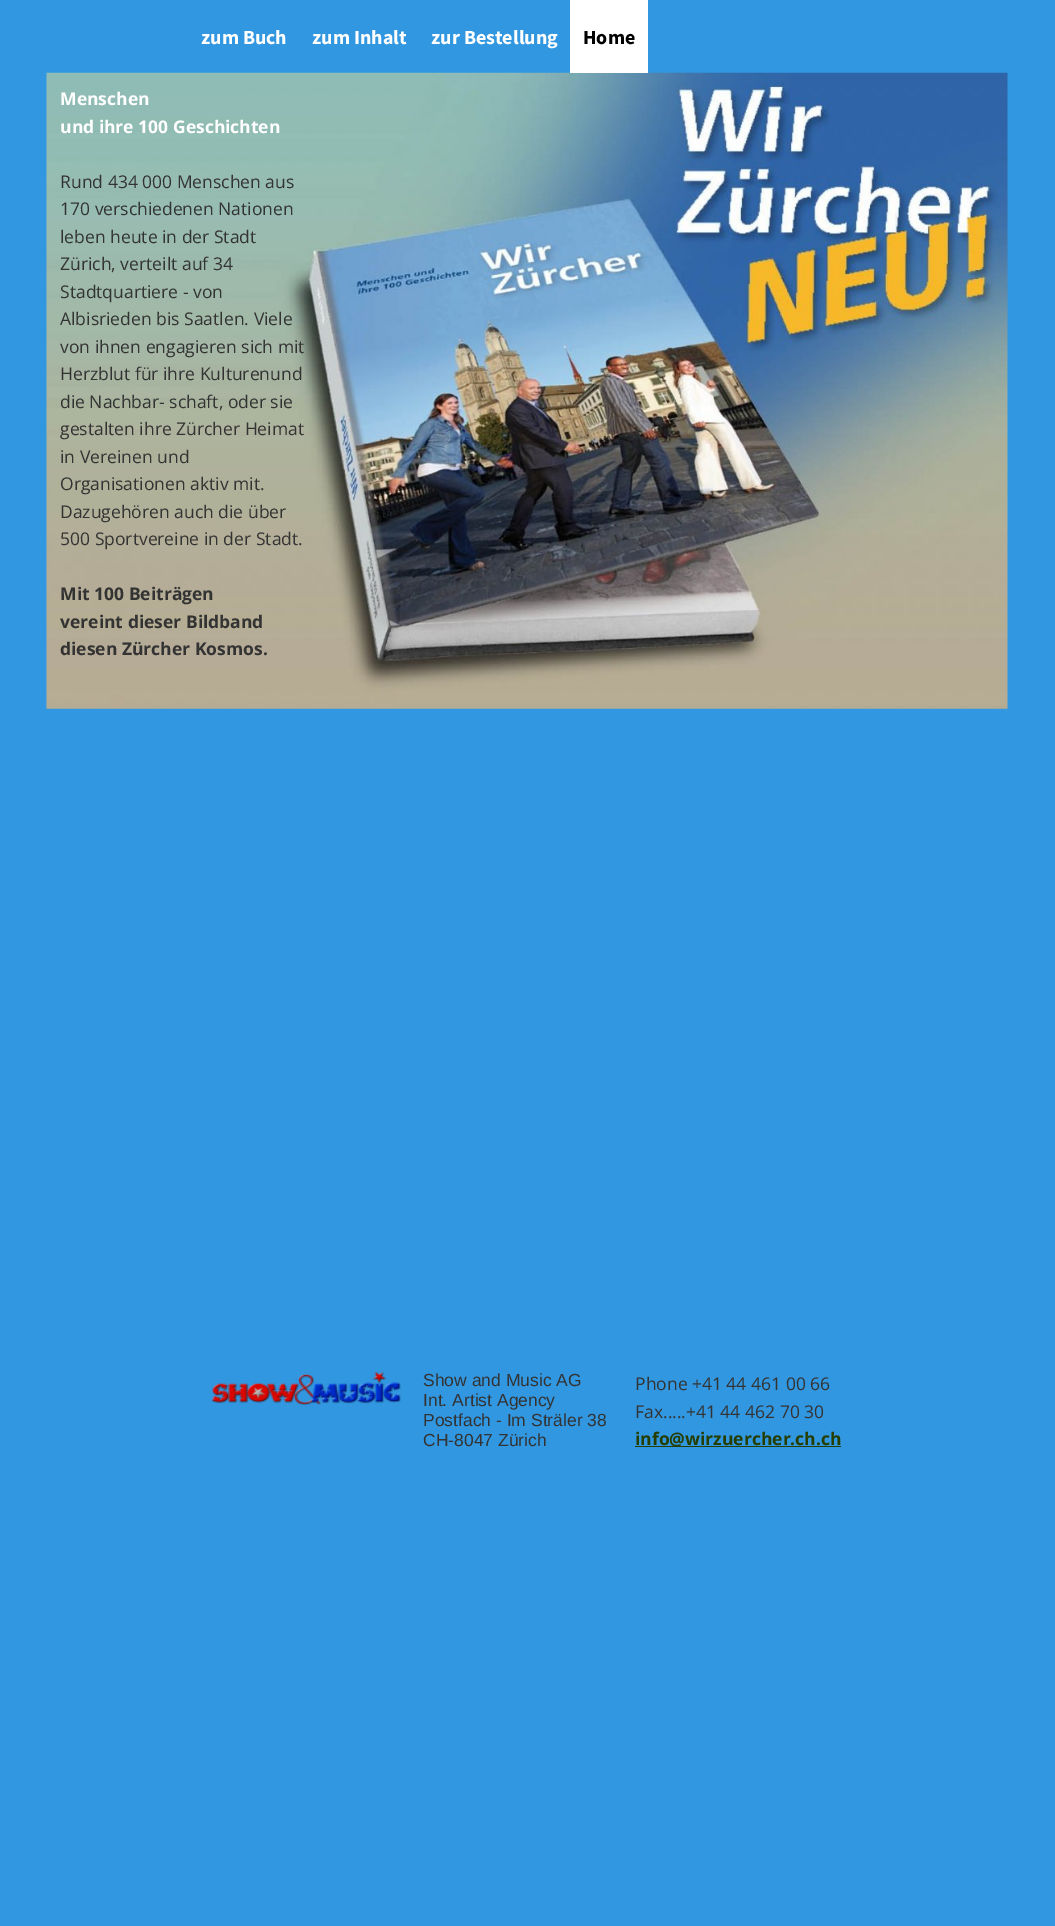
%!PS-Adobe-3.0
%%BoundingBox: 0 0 1055 1926
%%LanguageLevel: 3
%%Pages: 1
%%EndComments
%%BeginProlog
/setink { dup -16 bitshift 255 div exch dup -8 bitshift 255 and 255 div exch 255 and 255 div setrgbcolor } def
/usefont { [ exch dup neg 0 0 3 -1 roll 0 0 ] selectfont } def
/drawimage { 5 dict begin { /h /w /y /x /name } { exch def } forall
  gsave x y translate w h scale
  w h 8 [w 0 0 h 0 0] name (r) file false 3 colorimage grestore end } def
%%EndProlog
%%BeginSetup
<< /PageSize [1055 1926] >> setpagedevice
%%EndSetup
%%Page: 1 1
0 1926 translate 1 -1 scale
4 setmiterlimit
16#3197E0 setink
0 0 1055 1926 rectfill
/SourceSansPro-Bold 20 usefont
16#FFFFFF setink
[
    [(zum Buch) 201 44]
    [(zum Inhalt) 312 44]
    [(zur Bestellung) 431 44]
] { aload pop moveto show } forall
(img1.raw) 46 72 962 637 drawimage
570 0 78 73 rectfill
16#000000 setink
583 44 moveto (Home) show
/OpenSans-Bold 17.5 usefont
16#FFFFFF setink
60 105 moveto (Menschen) show
60 133 moveto (und ihre 100 Geschichten) show
/OpenSans-Regular 17.5 usefont
16#333333 setink
[
    [(Rund 434 000 Menschen aus) 60 188]
    [(170 verschiedenen Nationen) 60 215]
    [(leben heute in der Stadt) 60 243]
    [(Zürich, verteilt auf 34) 60 270]
    [(Stadtquartiere - von) 60 298]
    [(Albisrieden bis Saatlen. Viele) 60 325]
    [(von ihnen engagieren sich mit) 60 353]
    [(Herzblut für ihre Kulturenund) 60 380]
    [(die Nachbar- schaft, oder sie) 60 408]
    [(gestalten ihre Zürcher Heimat) 60 435]
    [(in Vereinen und) 60 463]
    [(Organisationen aktiv mit.) 60 490]
    [(Dazugehören auch die über) 60 518]
    [(500 Sportvereine in der Stadt.) 60 545]
] { aload pop moveto show } forall
/OpenSans-Bold 17.5 usefont
[
    [(Mit 100 Beiträgen) 60 600]
    [(vereint dieser Bildband) 60 628]
    [(diesen Zürcher Kosmos.) 60 655]
] { aload pop moveto show } forall
(img2.raw) 211 1371 190 35 drawimage
/LiberationSans-Regular 17.5 usefont
[
    [(Show and Music AG) 423 1386]
    [(Int. Artist Agency) 423 1406]
    [(Postfach - Im Sträler 38) 423 1426]
    [(CH-8047 Zürich) 423 1446]
] { aload pop moveto show } forall
/OpenSans-Regular 17.5 usefont
635 1390 moveto (Phone +41 44 461 00 66) show
635 1418 moveto (Fax.....+41 44 462 70 30) show
16#263D00 setink
635 1446 206 1 rectfill
/OpenSans-Bold 17.5 usefont
635 1445 moveto (info@wirzuercher.ch.ch) show
showpage
%%EOF
